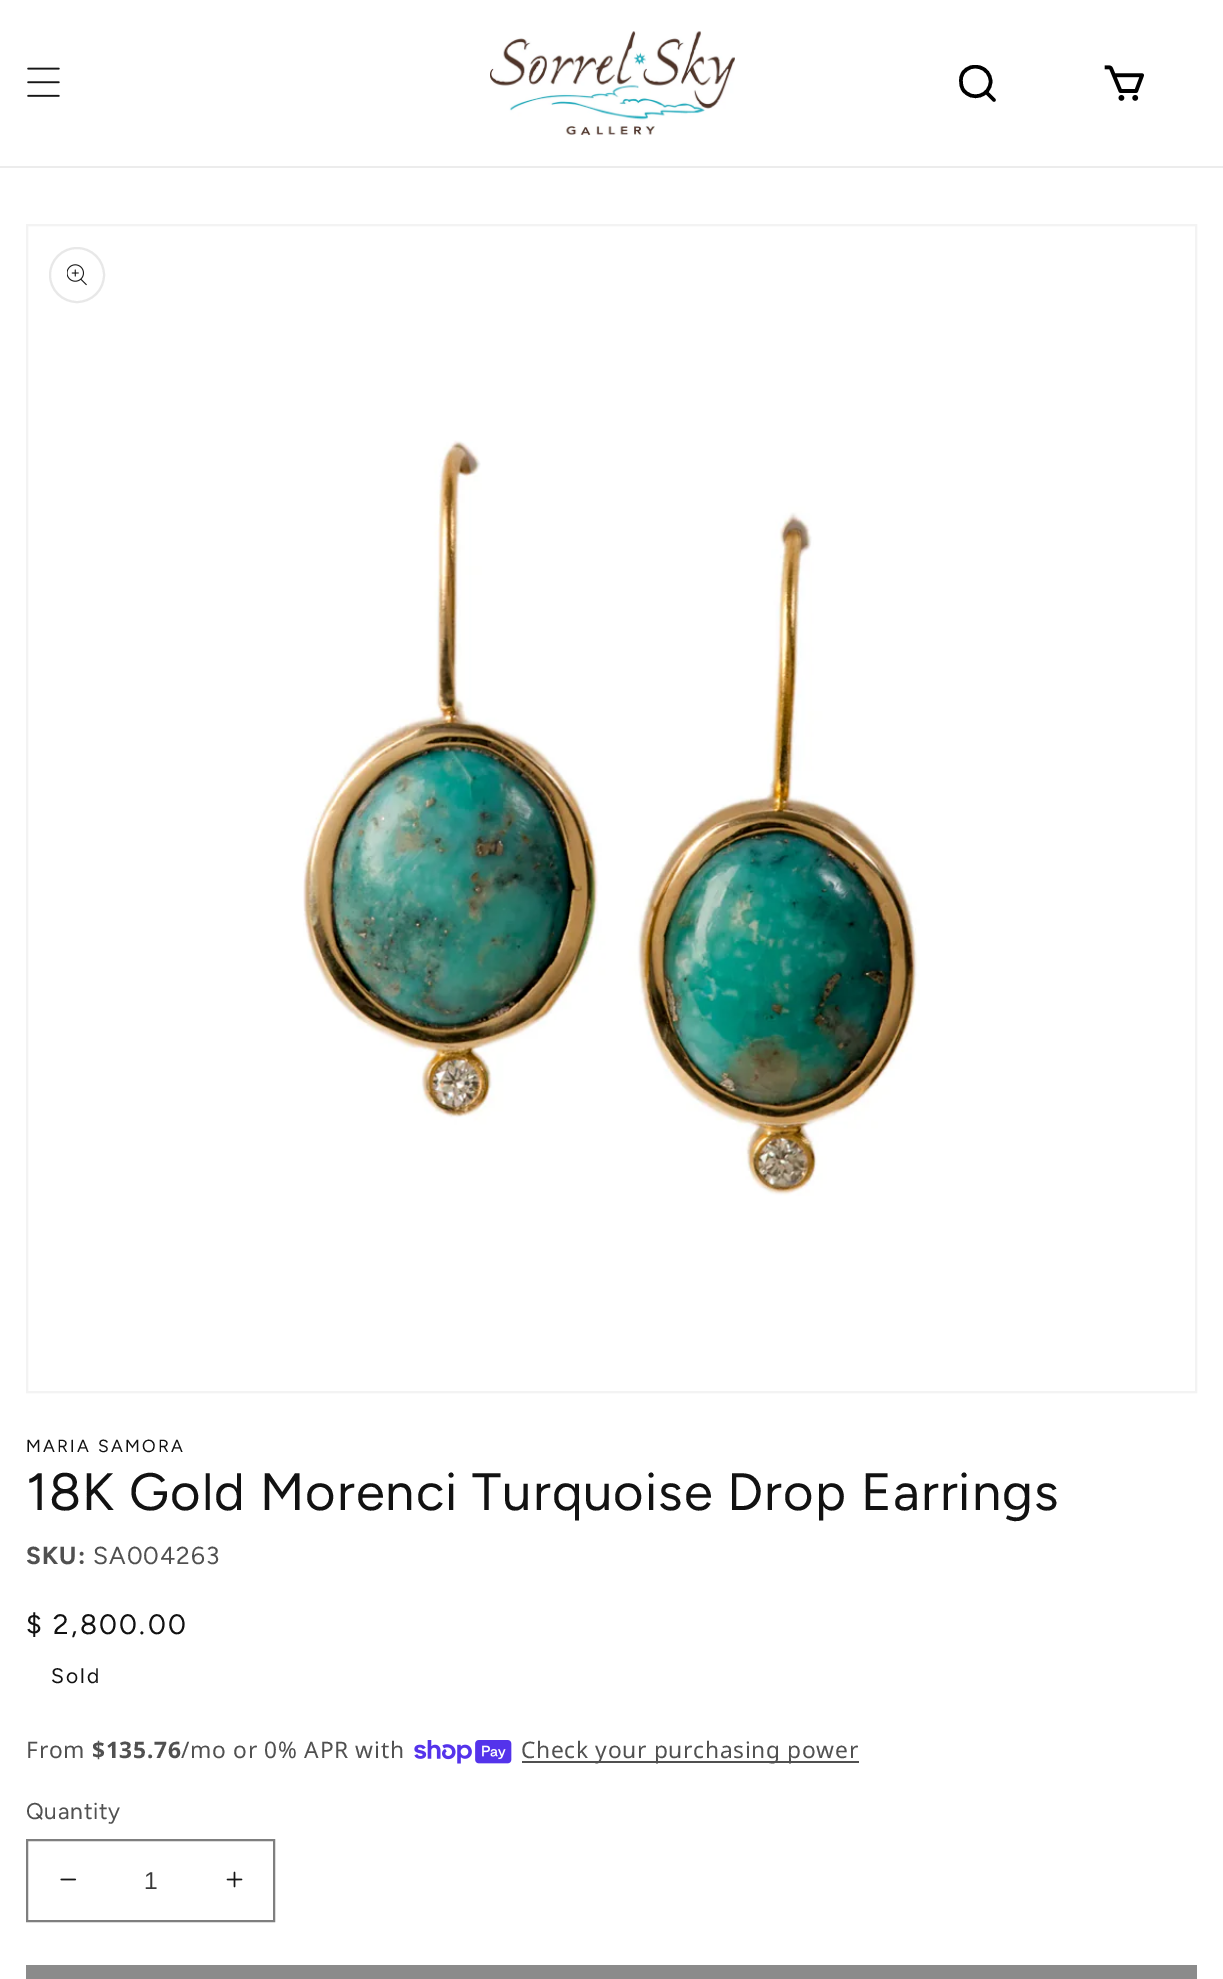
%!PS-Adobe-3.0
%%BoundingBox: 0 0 1223 1979
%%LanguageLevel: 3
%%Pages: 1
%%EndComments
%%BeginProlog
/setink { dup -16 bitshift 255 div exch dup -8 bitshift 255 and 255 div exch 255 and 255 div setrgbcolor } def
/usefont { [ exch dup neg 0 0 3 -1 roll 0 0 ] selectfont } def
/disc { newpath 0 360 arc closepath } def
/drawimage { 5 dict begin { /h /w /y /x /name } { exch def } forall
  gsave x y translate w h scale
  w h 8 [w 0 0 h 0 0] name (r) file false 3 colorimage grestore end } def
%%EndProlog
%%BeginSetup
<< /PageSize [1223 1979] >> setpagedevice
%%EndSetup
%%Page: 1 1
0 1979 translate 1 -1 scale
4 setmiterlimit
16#FFFFFF setink
0 0 1223 1979 rectfill
16#ECECEC setink
0 166 1223 2 rectfill
(img1.raw) 27 67 33 30 drawimage
(img2.raw) 490 31 245 104 drawimage
gsave
959 65 37 37 rectclip
16#000000 setink
3.5 setlinewidth
1 setlinecap
994 100 moveto 986 92 lineto 990.5 81.5 moveto 990.5 96 971.5 102 963 89.5 curveto 961.5 87 961 84.5 961 81.5 curveto 960.5 78.5 961.5 75.5 963 73 curveto 971.5 61 990.5 67 990.5 81.5 curveto closepath stroke
grestore
(img3.raw) 1104 65 40 36 drawimage
16#F3F3F3 setink
2 setlinewidth
27 225 1169 1167 rectstroke
(img4.raw) 303 440 617 756 drawimage
16#E8E8E8 setink
77 275 27 disc stroke
(img5.raw) 67 264 20 22 drawimage
/Figtree-Regular 17.5 usefont
16#121212 setink
26 1452 moveto 2.25 0 (MARIA SAMORA) ashow
/Figtree-Regular 52.5 usefont
26 1510 moveto 1.05 0 (18K Gold Morenci Turquoise Drop Earrings) ashow
/Figtree-Bold 24.5 usefont
16#505050 setink
26 1564 moveto 1.05 0 (SKU:) ashow
/Figtree-Regular 24.5 usefont
93 1564 moveto 1.05 0 (SA004263) ashow
/Figtree-Regular 28 usefont
16#121212 setink
26 1634 moveto 2.25 0 ($ 2,800.00) ashow
/Figtree-Regular 21 usefont
51 1683 moveto 2 0 (Sold) ashow
/NotoSans-Regular 22.75 usefont
16#505050 setink
26 1758 moveto 0.7 0 (From) ashow
/NotoSans-Bold 22.75 usefont
92 1758 moveto 0.7 0 ($135.76) ashow
/NotoSans-Regular 22.75 usefont
181 1758 moveto 0.7 0 (/mo or 0% APR with) ashow
(img6.raw) 414 1740 98 24 drawimage
522 1761 337 2 rectfill
521 1758 moveto 0.7 0 (Check your purchasing power) ashow
/Figtree-Regular 22.75 usefont
26 1819 moveto 0.7 0 (Quantity) ashow
(img7.raw) 60 1878 17 3 drawimage
(img8.raw) 226 1871 17 17 drawimage
16#7F7F7F setink
27 1840 247 81 rectstroke
/LiberationSans-Regular 24.5 usefont
16#393939 setink
144 1889 moveto (1) show
16#8B8B8B setink
26 1965 1171 14 rectfill
showpage
%%EOF
